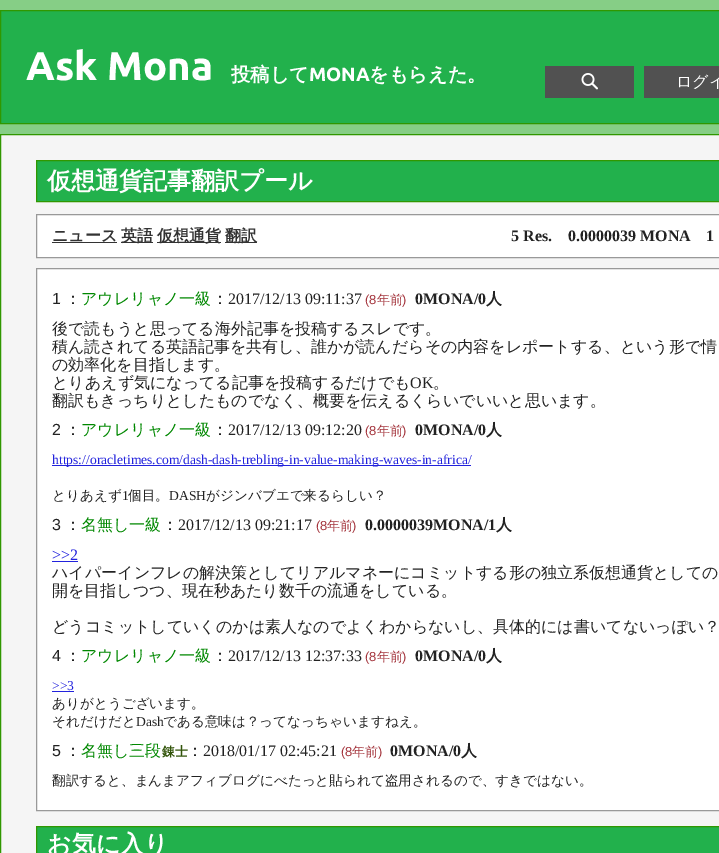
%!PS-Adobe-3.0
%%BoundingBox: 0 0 719 853
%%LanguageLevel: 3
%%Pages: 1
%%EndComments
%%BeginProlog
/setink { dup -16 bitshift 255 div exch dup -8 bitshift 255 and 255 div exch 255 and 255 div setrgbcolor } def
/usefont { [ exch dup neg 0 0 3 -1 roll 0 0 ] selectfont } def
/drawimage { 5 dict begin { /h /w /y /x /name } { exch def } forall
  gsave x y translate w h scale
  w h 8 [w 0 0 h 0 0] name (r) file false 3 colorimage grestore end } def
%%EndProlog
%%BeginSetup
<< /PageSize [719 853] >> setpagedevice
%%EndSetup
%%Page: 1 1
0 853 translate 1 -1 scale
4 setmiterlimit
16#86CE86 setink
0 0 719 853 rectfill
16#22B14C setink
0.5 10.5 moveto 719.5 10.5 lineto 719.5 123.5 lineto 0.5 123.5 lineto closepath gsave fill grestore
16#309700 setink
stroke
/Ubuntu-Bold 40 usefont
16#FFFFFF setink
26 80 moveto (Ask Mona) show
/WenQuanYiZenHei-Bold 19.25 usefont
231 81 moveto (投稿して) show
/Ubuntu-Bold 19.25 usefont
309 81 moveto (MONA) show
/WenQuanYiZenHei-Bold 19.25 usefont
369 81 moveto (をもらえた。) show
16#515151 setink
545 66 89 32 rectfill
(img1.raw) 581 73 17 17 drawimage
644 66 75 32 rectfill
/WenQuanYiZenHei-Medium 16 usefont
16#FFFFFF setink
676 87 moveto (ログイ) show
16#F5F5F5 setink
0.5 134.5 moveto 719.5 134.5 lineto 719.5 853.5 lineto 0.5 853.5 lineto closepath gsave fill grestore
16#309700 setink
stroke
16#22B14C setink
36.5 160.5 moveto 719.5 160.5 lineto 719.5 201.5 lineto 36.5 201.5 lineto closepath gsave fill grestore
16#309700 setink
stroke
/WenQuanYiZenHei-Bold 24 usefont
16#FFFFFF setink
47 189 moveto (仮想通貨記事翻訳プール) show
36.5 214.5 moveto 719.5 214.5 lineto 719.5 257.5 lineto 36.5 257.5 lineto closepath gsave fill grestore
16#999999 setink
stroke
/WenQuanYiZenHei-Bold 16 usefont
16#333333 setink
52 241 moveto (ニュース) show
52 242 65 1 rectfill
121 242 32 1 rectfill
121 241 moveto (英語) show
157 242 64 1 rectfill
157 241 moveto (仮想通貨) show
225 242 32 1 rectfill
225 241 moveto (翻訳) show
/LiberationSerif-Bold 16 usefont
16#222222 setink
[
    [(5 Res.) 511 241]
    [(0.0000039 MONA) 568 241]
    [(1) 706 241]
] { aload pop moveto show } forall
16#FFFFFF setink
36.5 268.5 moveto 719.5 268.5 lineto 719.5 810.5 lineto 36.5 810.5 lineto closepath gsave fill grestore
16#999999 setink
stroke
/LiberationSans-Regular 16 usefont
16#222222 setink
52 304 moveto (1) show
/WenQuanYiZenHei-Medium 16 usefont
65 304 moveto (：) show
16#008800 setink
81 304 moveto (アウレリャノ一級) show
16#222222 setink
212 304 moveto (：) show
/LiberationSerif-Regular 16 usefont
228 304 moveto (2017/12/13 09:11:37) show
/LiberationSans-Regular 13 usefont
16#A3323A setink
365 304 moveto (\(8) show
/WenQuanYiZenHei-Medium 13 usefont
377 304 moveto (年前) show
/LiberationSans-Regular 13 usefont
402 304 moveto (\)) show
/LiberationSerif-Bold 16 usefont
16#222222 setink
415 304 moveto (0MONA/0) show
/WenQuanYiZenHei-Bold 16 usefont
486 304 moveto (人) show
/WenQuanYiZenHei-Medium 16 usefont
[
    [(後で読もうと思ってる海外記事を投稿するスレです。) 52 334]
    [(積ん読されてる英語記事を共有し、誰かが読んだらその内容をレポートする、という形で情) 52 352]
    [(の効率化を目指します。) 52 370]
    [(とりあえず気になってる記事を投稿するだけでも) 52 388]
] { aload pop moveto show } forall
/LiberationSerif-Regular 16 usefont
410 388 moveto (OK) show
/WenQuanYiZenHei-Medium 16 usefont
433 388 moveto (。) show
52 406 moveto (翻訳もきっちりとしたものでなく、概要を伝えるくらいでいいと思います。) show
/LiberationSans-Regular 16 usefont
52 435 moveto (2) show
/WenQuanYiZenHei-Medium 16 usefont
65 435 moveto (：) show
16#008800 setink
81 435 moveto (アウレリャノ一級) show
16#222222 setink
212 435 moveto (：) show
/LiberationSerif-Regular 16 usefont
228 435 moveto (2017/12/13 09:12:20) show
/LiberationSans-Regular 13 usefont
16#A3323A setink
365 435 moveto (\(8) show
/WenQuanYiZenHei-Medium 13 usefont
377 435 moveto (年前) show
/LiberationSans-Regular 13 usefont
402 435 moveto (\)) show
/LiberationSerif-Bold 16 usefont
16#222222 setink
415 435 moveto (0MONA/0) show
/WenQuanYiZenHei-Bold 16 usefont
486 435 moveto (人) show
16#2222DD setink
52 465 419 1 rectfill
/LiberationSerif-Regular 13.6 usefont
52 464 moveto (https://oracletimes.com/dash-dash-trebling-in-value-making-waves-in-africa/) show
/WenQuanYiZenHei-Medium 13.6 usefont
16#222222 setink
52 500 moveto (とりあえず) show
/LiberationSerif-Regular 13.6 usefont
122 500 moveto (1) show
/WenQuanYiZenHei-Medium 13.6 usefont
128 500 moveto (個目。) show
/LiberationSerif-Regular 13.6 usefont
169 500 moveto (DASH) show
/WenQuanYiZenHei-Medium 13.6 usefont
206 500 moveto (がジンバブエで来るらしい？) show
/LiberationSans-Regular 16 usefont
52 530 moveto (3) show
/WenQuanYiZenHei-Medium 16 usefont
65 530 moveto (：) show
16#008800 setink
81 530 moveto (名無し一級) show
16#222222 setink
162 530 moveto (：) show
/LiberationSerif-Regular 16 usefont
178 530 moveto (2017/12/13 09:21:17) show
/LiberationSans-Regular 13 usefont
16#A3323A setink
316 530 moveto (\(8) show
/WenQuanYiZenHei-Medium 13 usefont
327 530 moveto (年前) show
/LiberationSans-Regular 13 usefont
352 530 moveto (\)) show
/LiberationSerif-Bold 16 usefont
16#222222 setink
365 530 moveto (0.0000039MONA/1) show
/WenQuanYiZenHei-Bold 16 usefont
496 530 moveto (人) show
/LiberationSerif-Regular 16 usefont
16#2222DD setink
52 560 moveto (>>2) show
52 561 26 1 rectfill
/WenQuanYiZenHei-Medium 16 usefont
16#222222 setink
[
    [(ハイパーインフレの解決策としてリアルマネーにコミットする形の独立系仮想通貨としての) 52 578]
    [(開を目指しつつ、現在秒あたり数千の流通をしている。) 52 596]
    [(どうコミットしていくのかは素人なのでよくわからないし、具体的には書いてないっぽい？) 52 632]
] { aload pop moveto show } forall
/LiberationSans-Regular 16 usefont
52 661 moveto (4) show
/WenQuanYiZenHei-Medium 16 usefont
65 661 moveto (：) show
16#008800 setink
81 661 moveto (アウレリャノ一級) show
16#222222 setink
212 661 moveto (：) show
/LiberationSerif-Regular 16 usefont
228 661 moveto (2017/12/13 12:37:33) show
/LiberationSans-Regular 13 usefont
16#A3323A setink
365 661 moveto (\(8) show
/WenQuanYiZenHei-Medium 13 usefont
377 661 moveto (年前) show
/LiberationSans-Regular 13 usefont
402 661 moveto (\)) show
/LiberationSerif-Bold 16 usefont
16#222222 setink
415 661 moveto (0MONA/0) show
/WenQuanYiZenHei-Bold 16 usefont
486 661 moveto (人) show
/LiberationSerif-Regular 13.6 usefont
16#2222DD setink
52 690 moveto (>>3) show
52 691 22 1 rectfill
/WenQuanYiZenHei-Medium 13.6 usefont
16#222222 setink
52 708 moveto (ありがとうございます。) show
52 726 moveto (それだけだと) show
/LiberationSerif-Regular 13.6 usefont
136 726 moveto (Dash) show
/WenQuanYiZenHei-Medium 13.6 usefont
163 726 moveto (である意味は？ってなっちゃいますねえ。) show
/LiberationSans-Regular 16 usefont
52 756 moveto (5) show
/WenQuanYiZenHei-Medium 16 usefont
65 756 moveto (：) show
16#008800 setink
81 756 moveto (名無し三段) show
/WenQuanYiZenHei-Bold 13 usefont
16#32540A setink
162 756 moveto (錬士) show
/WenQuanYiZenHei-Medium 16 usefont
16#222222 setink
187 756 moveto (：) show
/LiberationSerif-Regular 16 usefont
203 756 moveto (2018/01/17 02:45:21) show
/LiberationSans-Regular 13 usefont
16#A3323A setink
341 756 moveto (\(8) show
/WenQuanYiZenHei-Medium 13 usefont
352 756 moveto (年前) show
/LiberationSans-Regular 13 usefont
378 756 moveto (\)) show
/LiberationSerif-Bold 16 usefont
16#222222 setink
390 756 moveto (0MONA/0) show
/WenQuanYiZenHei-Bold 16 usefont
461 756 moveto (人) show
/WenQuanYiZenHei-Medium 13.6 usefont
52 785 moveto (翻訳すると、まんまアフィブログにべたっと貼られて盗用されるので、すきではない。) show
16#22B14C setink
36.5 826.5 moveto 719.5 826.5 lineto 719.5 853.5 lineto 36.5 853.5 lineto closepath gsave fill grestore
16#309700 setink
stroke
/WenQuanYiZenHei-Bold 24 usefont
16#FFFFFF setink
47 852 moveto (お気に入り) show
showpage
%%EOF
